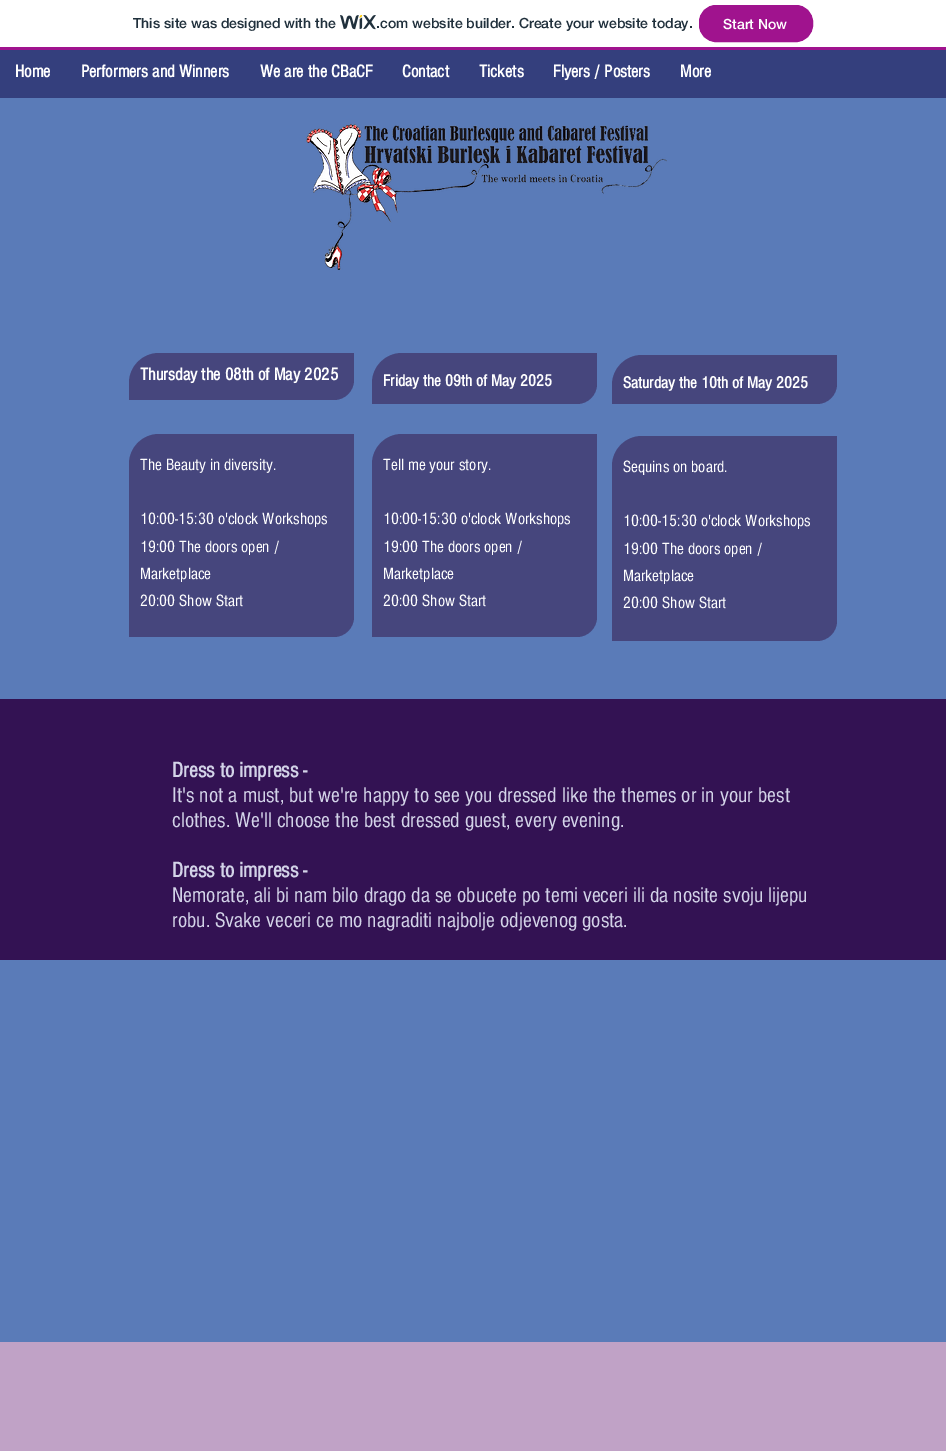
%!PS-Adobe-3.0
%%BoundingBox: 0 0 946 1451
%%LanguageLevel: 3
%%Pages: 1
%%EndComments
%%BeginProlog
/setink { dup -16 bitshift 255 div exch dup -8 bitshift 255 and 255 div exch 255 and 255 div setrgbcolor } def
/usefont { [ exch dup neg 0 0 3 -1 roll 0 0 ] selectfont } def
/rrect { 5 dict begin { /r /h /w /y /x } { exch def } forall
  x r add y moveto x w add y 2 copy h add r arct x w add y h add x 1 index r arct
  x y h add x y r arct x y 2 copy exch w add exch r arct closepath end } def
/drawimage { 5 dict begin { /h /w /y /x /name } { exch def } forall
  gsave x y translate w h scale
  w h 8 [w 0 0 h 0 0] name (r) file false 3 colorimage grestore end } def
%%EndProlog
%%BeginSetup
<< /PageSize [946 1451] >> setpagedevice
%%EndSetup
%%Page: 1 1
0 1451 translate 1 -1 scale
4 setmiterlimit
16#FFFFFF setink
0 0 946 1451 rectfill
16#A0138E setink
0 47 946 3 rectfill
/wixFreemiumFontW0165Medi-Medium 14 usefont
16#20303C setink
133 28 moveto (This site was designed with the) show
(img1.raw) 340 15 36 15 drawimage
376 28 moveto (.com website builder. Create your website today.) show
16#A0138E setink
699.5 5.5 113 36 16.5 rrect gsave fill grestore
stroke
16#FFFFFF setink
723 29 moveto (Start Now) show
16#343F7D setink
0 50 946 48 rectfill
/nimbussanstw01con-Bold 18 usefont
16#FFFFFF setink
[
    [(Home) 15 77]
    [(Performers and Winners) 81 77]
    [(We are the CBaCF) 260 77]
    [(Contact) 402 77]
    [(Tickets) 479 77]
    [(Flyers / Posters) 553 77]
    [(More) 680 77]
] { aload pop moveto show } forall
16#5A7BB8 setink
0 98 946 601 rectfill
(img2.raw) 306 124 361 146 drawimage
16#46467D setink
159 353 moveto 354 353 lineto 354 380 lineto 354 391 345 400 334 400 curveto 129 400 lineto 129 383 lineto 129 366.5 142.5 353 159 353 curveto closepath fill
16#FFFFFF setink
140 380 moveto (Thursday the 08th of May 2025) show
16#46467D setink
402 353 moveto 597 353 lineto 597 384 lineto 597 395 588 404 577 404 curveto 372 404 lineto 372 383 lineto 372 366.5 385.5 353 402 353 curveto closepath fill
/nimbussanstw01con-Bold 17 usefont
16#FFFFFF setink
383 386 moveto (Friday the 09th of May 2025) show
16#46467D setink
642 355 moveto 837 355 lineto 837 384 lineto 837 395 828 404 817 404 curveto 612 404 lineto 612 385 lineto 612 368.5 625.5 355 642 355 curveto closepath fill
16#FFFFFF setink
623 388 moveto (Saturday the 10th of May 2025) show
16#46467D setink
159 434 moveto 354 434 lineto 354 617 lineto 354 628 345 637 334 637 curveto 129 637 lineto 129 464 lineto 129 447.5 142.5 434 159 434 curveto closepath fill
/nimbussanstw01con-Regular 17 usefont
16#FFFFFF setink
[
    [(The Beauty in diversity.) 140 470]
    [(10:00-15:30 o'clock Workshops) 140 524]
    [(19:00 The doors open /) 140 552]
    [(Marketplace) 140 579]
    [(20:00 Show Start) 140 606]
] { aload pop moveto show } forall
16#46467D setink
402 434 moveto 597 434 lineto 597 617 lineto 597 628 588 637 577 637 curveto 372 637 lineto 372 464 lineto 372 447.5 385.5 434 402 434 curveto closepath fill
16#FFFFFF setink
[
    [(Tell me your story.) 383 470]
    [(10:00-15:30 o'clock Workshops) 383 524]
    [(19:00 The doors open /) 383 552]
    [(Marketplace) 383 579]
    [(20:00 Show Start) 383 606]
] { aload pop moveto show } forall
16#46467D setink
642 436 moveto 837 436 lineto 837 621 lineto 837 632 828 641 817 641 curveto 612 641 lineto 612 466 lineto 612 449.5 625.5 436 642 436 curveto closepath fill
16#FFFFFF setink
[
    [(Sequins on board.) 623 472]
    [(10:00-15:30 o'clock Workshops) 623 526]
    [(19:00 The doors open /) 623 554]
    [(Marketplace) 623 581]
    [(20:00 Show Start) 623 608]
] { aload pop moveto show } forall
16#331253 setink
0 699 946 261 rectfill
/nimbussanstw01con-Bold 22 usefont
16#D3D3E8 setink
172 777 moveto (Dress to impress -) show
/nimbussanstw01con-Regular 22 usefont
172 802 moveto (It's not a must, but we're happy to see you dressed like the themes or in your best) show
172 827 moveto (clothes. We'll choose the best dressed guest, every evening.) show
/nimbussanstw01con-Bold 22 usefont
172 877 moveto (Dress to impress -) show
/nimbussanstw01con-Regular 22 usefont
172 902 moveto (Nemorate, ali bi nam bilo drago da se obucete po temi veceri ili da nosite svoju lijepu) show
172 927 moveto (robu. Svake veceri ce mo nagraditi najbolje odjevenog gosta.) show
16#5A7BB8 setink
0 960 946 382 rectfill
16#C0A2C6 setink
0 1342 946 109 rectfill
showpage
%%EOF
